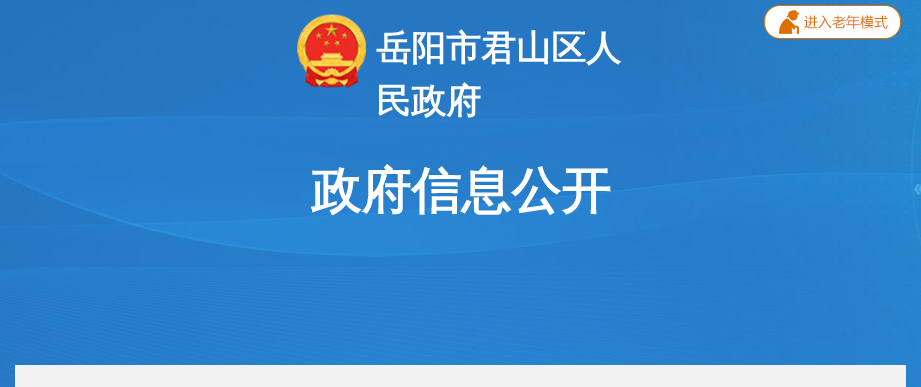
%!PS-Adobe-3.0
%%BoundingBox: 0 0 921 387
%%LanguageLevel: 3
%%Pages: 1
%%EndComments
%%BeginProlog
/setink { dup -16 bitshift 255 div exch dup -8 bitshift 255 and 255 div exch 255 and 255 div setrgbcolor } def
/usefont { [ exch dup neg 0 0 3 -1 roll 0 0 ] selectfont } def
/drawimage { 5 dict begin { /h /w /y /x /name } { exch def } forall
  gsave x y translate w h scale
  w h 8 [w 0 0 h 0 0] name (r) file false 3 colorimage grestore end } def
%%EndProlog
%%BeginSetup
<< /PageSize [921 387] >> setpagedevice
%%EndSetup
%%Page: 1 1
0 387 translate 1 -1 scale
4 setmiterlimit
16#FFFFFF setink
0 0 921 387 rectfill
(img1.raw) 0 0 921 387 drawimage
(img2.raw) 764 5 137 34 drawimage
(img3.raw) 297 14 69 74 drawimage
/WenQuanYiZenHei-Bold 35 usefont
376 60 moveto (岳阳市君山区人) show
376 113 moveto (民政府) show
/WenQuanYiZenHei-Bold 50 usefont
311 208 moveto (政府信息公开) show
16#F2F2F2 setink
15 365 891 22 rectfill
showpage
%%EOF
